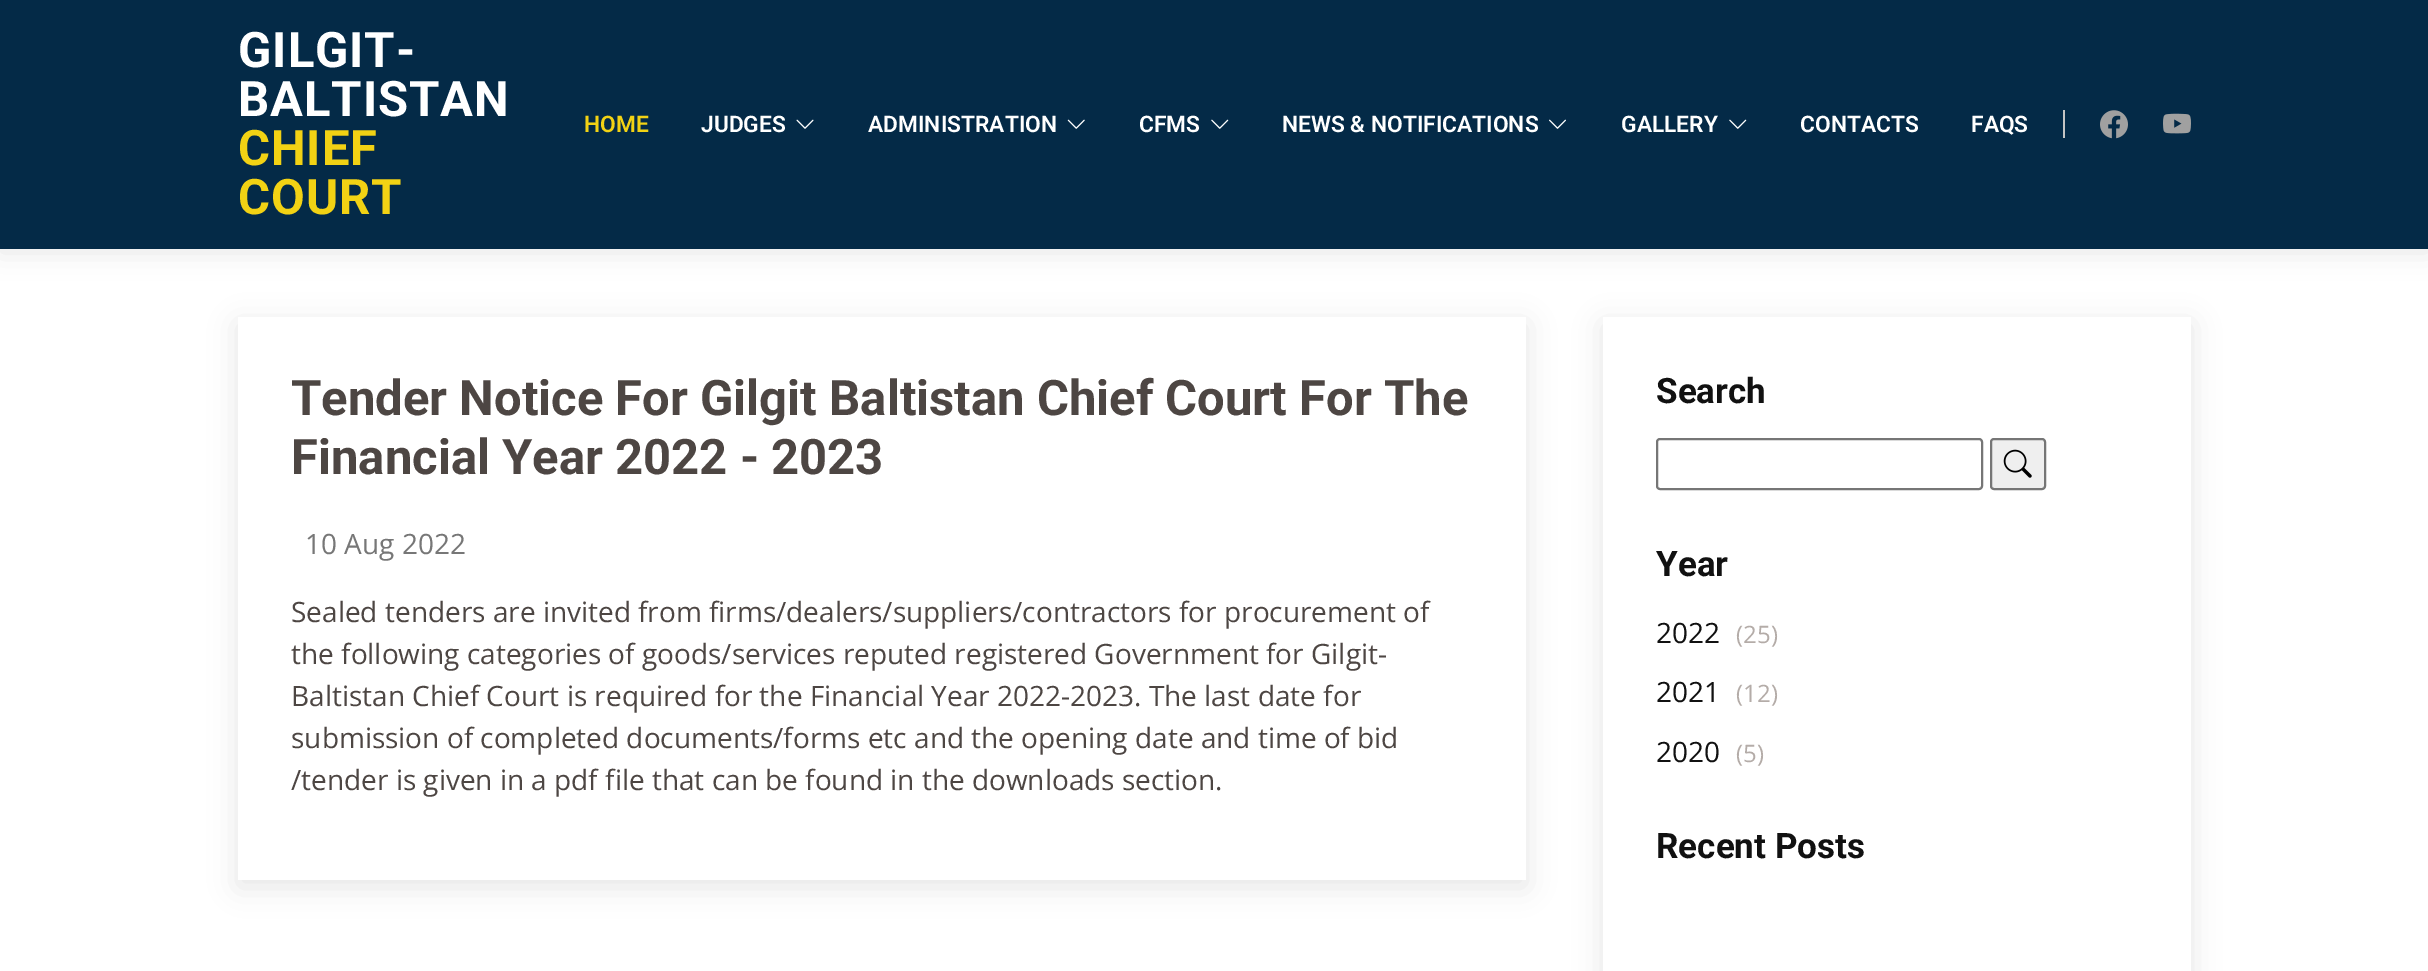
%!PS-Adobe-3.0
%%BoundingBox: 0 0 2428 971
%%LanguageLevel: 3
%%Pages: 1
%%EndComments
%%BeginProlog
/setink { dup -16 bitshift 255 div exch dup -8 bitshift 255 and 255 div exch 255 and 255 div setrgbcolor } def
/usefont { [ exch dup neg 0 0 3 -1 roll 0 0 ] selectfont } def
/setalpha { dup .setfillconstantalpha .setstrokeconstantalpha } def
/rrect { 5 dict begin { /r /h /w /y /x } { exch def } forall
  x r add y moveto x w add y 2 copy h add r arct x w add y h add x 1 index r arct
  x y h add x y r arct x y 2 copy exch w add exch r arct closepath end } def
/softshadow { 12 dict begin { /a /b /q /h /w /y /x } { exch def } forall gsave /was 0 def
  9 -2 -9 { dup b mul 4 div /e exch def 1 sub .425 mul 2.718 exch exp 1 add a .99 .min exch div /now exch def
    1 1 now sub 1 was sub div sub setalpha /was now def
    w h .min e 2 mul add 0 gt { x e sub y e sub w e 2 mul add h e 2 mul add
      q e add b .6 mul add w h .min 2 div e add .min 0 .max rrect fill } if } for grestore end } def
/drawimage { 5 dict begin { /h /w /y /x /name } { exch def } forall
  gsave x y translate w h scale
  w h 8 [w 0 0 h 0 0] name (r) file false 3 colorimage grestore end } def
%%EndProlog
%%BeginSetup
<< /PageSize [2428 971] /PageUsesTransparency true >> setpagedevice
%%EndSetup
%%Page: 1 1
0 .pushpdf14devicefilter
0 971 translate 1 -1 scale
4 setmiterlimit
16#FFFFFF setink
0 0 2428 971 rectfill
16#000000 setink
0 4 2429 248 0 13 0.1 softshadow
16#042A47 setink
0 0 2428 249 rectfill
/Roboto-Bold 49 usefont
16#FFFFFF setink
238 67 moveto 0.9 0 (GILGIT-) ashow
238 116 moveto 0.9 0 (BALTISTAN) ashow
16#F2D214 setink
238 165 moveto 0.9 0 (CHIEF) ashow
238 214 moveto 0.9 0 (COURT) ashow
/Roboto-SemiBold 22.75 usefont
584 132 moveto (HOME) show
16#FFFFFF setink
701 132 moveto (JUDGES) show
(img1.raw) 796 119 18 10 drawimage
868 132 moveto (ADMINISTRATION) show
(img2.raw) 1067 119 18 10 drawimage
1139 132 moveto (CFMS) show
(img3.raw) 1211 119 18 10 drawimage
1282 132 moveto (NEWS & NOTIFICATIONS) show
(img4.raw) 1549 119 17 10 drawimage
1621 132 moveto (GALLERY) show
(img3.raw) 1729 119 18 10 drawimage
1800 132 moveto (CONTACTS) show
1971 132 moveto (FAQS) show
16#C4C4C4 setink
2063 110 2 28 rectfill
(img5.raw) 2100 110 28 29 drawimage
(img6.raw) 2163 113 28 21 drawimage
gsave
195 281 moveto 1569 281 lineto 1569 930 lineto 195 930 lineto closepath 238 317 moveto 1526 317 lineto 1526 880 lineto 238 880 lineto closepath eoclip newpath
16#000000 setink
238 324 1288 563 0 14 0.1 softshadow
grestore
/Roboto-Bold 49 usefont
16#4D4643 setink
291 415 moveto (Tender Notice For Gilgit Baltistan Chief Court For The) show
291 474 moveto (Financial Year 2022 - 2023) show
/OpenSans-Regular 28 usefont
16#777777 setink
305 554 moveto (10 Aug 2022) show
16#4D4643 setink
[
    [(Sealed tenders are invited from firms/dealers/suppliers/contractors for procurement of) 291 622]
    [(the following categories of goods/services reputed registered Government for Gilgit-) 291 664]
    [(Baltistan Chief Court is required for the Financial Year 2022-2023. The last date for) 291 706]
    [(submission of completed documents/forms etc and the opening date and time of bid) 291 748]
    [(/tender is given in a pdf file that can be found in the downloads section.) 291 790]
] { aload pop moveto show } forall
gsave
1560 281 moveto 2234 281 lineto 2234 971 lineto 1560 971 lineto closepath 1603 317 moveto 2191 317 lineto 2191 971 lineto 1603 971 lineto closepath eoclip newpath
16#000000 setink
1603 324 588 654 0 14 0.1 softshadow
grestore
/Roboto-Bold 35 usefont
16#111111 setink
1656 403 moveto (Search) show
16#767676 setink
2 setlinewidth
1657 439 325 50 3 rrect stroke
16#EFEFEF setink
1991 439 54 50 3 rrect gsave fill grestore
16#767676 setink
stroke
(img7.raw) 2003 449 29 29 drawimage
16#111111 setink
1656 576 moveto (Year) show
/OpenSans-Regular 28 usefont
1656 643 moveto (2022) show
/OpenSans-Regular 24 usefont
16#B4ACA8 setink
1736 643 moveto (\(25\)) show
/OpenSans-Regular 28 usefont
16#111111 setink
1656 702 moveto (2021) show
/OpenSans-Regular 24 usefont
16#B4ACA8 setink
1736 702 moveto (\(12\)) show
/OpenSans-Regular 28 usefont
16#111111 setink
1656 762 moveto (2020) show
/OpenSans-Regular 24 usefont
16#B4ACA8 setink
1736 762 moveto (\(5\)) show
/Roboto-Bold 35 usefont
16#111111 setink
1656 858 moveto (Recent Posts) show
.poppdf14devicefilter showpage
%%EOF
